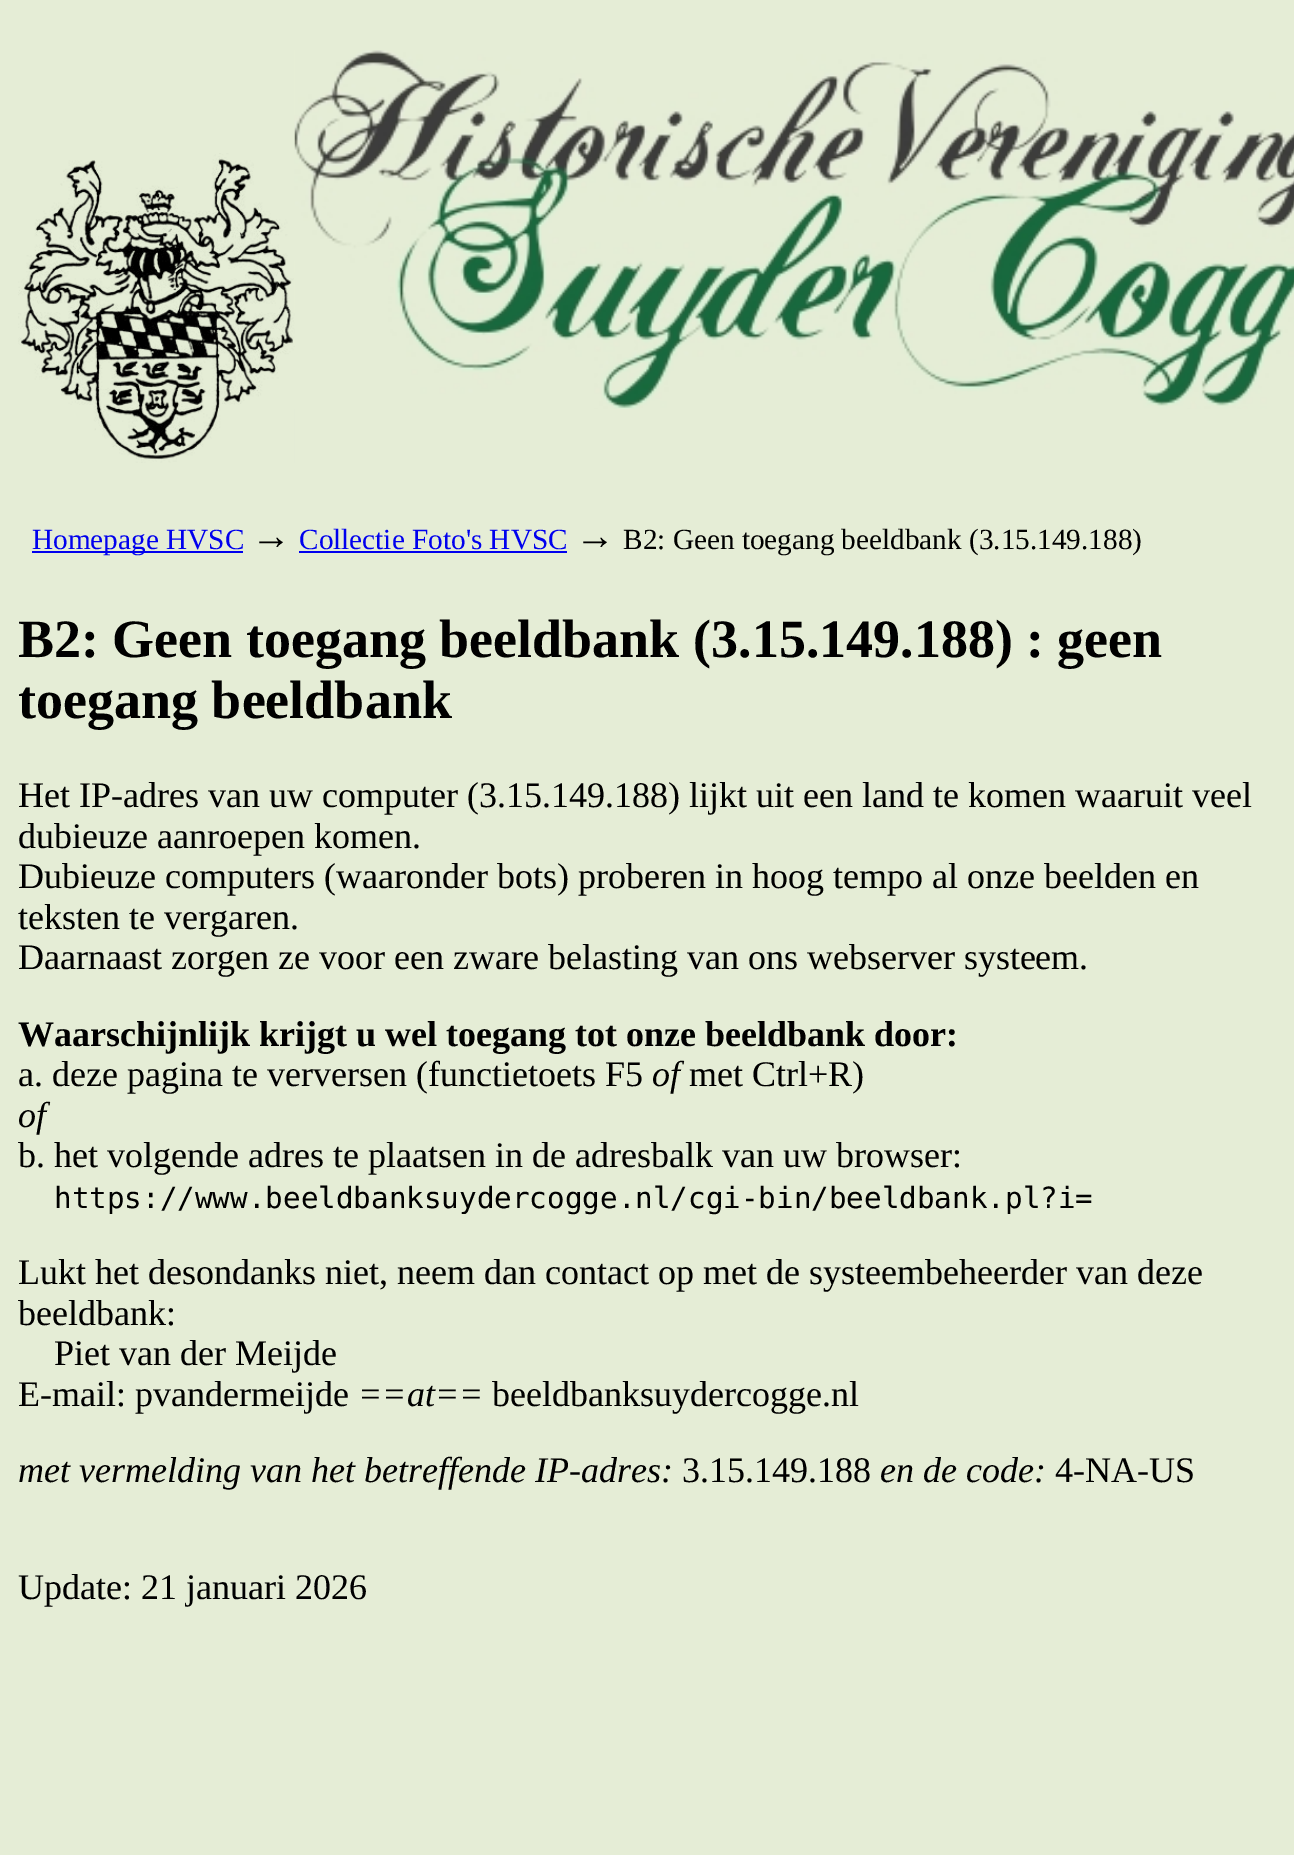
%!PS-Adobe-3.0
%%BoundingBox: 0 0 1294 1855
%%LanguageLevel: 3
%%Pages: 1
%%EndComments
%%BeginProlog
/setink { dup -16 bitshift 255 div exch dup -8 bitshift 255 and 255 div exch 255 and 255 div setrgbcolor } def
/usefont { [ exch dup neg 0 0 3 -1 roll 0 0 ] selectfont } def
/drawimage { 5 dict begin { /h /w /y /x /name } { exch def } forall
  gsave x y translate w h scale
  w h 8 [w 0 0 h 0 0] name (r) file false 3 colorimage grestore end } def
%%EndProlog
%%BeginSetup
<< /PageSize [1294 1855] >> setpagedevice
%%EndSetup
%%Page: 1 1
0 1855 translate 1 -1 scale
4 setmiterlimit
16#E5EDD6 setink
0 0 1294 1855 rectfill
(img1.raw) 18 153 277 310 drawimage
(img2.raw) 294 50 1000 359 drawimage
16#0000EE setink
32 551 211 2 rectfill
/LiberationSerif-Regular 29.25 usefont
32 549 moveto (Homepage HVSC) show
/LiberationSerif-Regular 40 usefont
16#000000 setink
251 549 moveto (→) show
/LiberationSerif-Regular 29.25 usefont
16#0000EE setink
299 549 moveto (Collectie Foto's HVSC) show
299 551 268 2 rectfill
/LiberationSerif-Regular 40 usefont
16#000000 setink
575 549 moveto (→) show
/LiberationSerif-Regular 29.25 usefont
623 549 moveto (B2: Geen toegang beeldbank \(3.15.149.188\)) show
/LiberationSerif-Bold 54 usefont
18 657 moveto (B2: Geen toegang beeldbank \(3.15.149.188\) : geen) show
18 718 moveto (toegang beeldbank) show
/LiberationSerif-Regular 36 usefont
[
    [(Het IP-adres van uw computer \(3.15.149.188\) lijkt uit een land te komen waaruit veel) 18 807]
    [(dubieuze aanroepen komen.) 18 848]
    [(Dubieuze computers \(waaronder bots\) proberen in hoog tempo al onze beelden en) 18 888]
    [(teksten te vergaren.) 18 929]
    [(Daarnaast zorgen ze voor een zware belasting van ons webserver systeem.) 18 969]
] { aload pop moveto show } forall
/LiberationSerif-Bold 36 usefont
18 1046 moveto (Waarschijnlijk krijgt u wel toegang tot onze beeldbank door:) show
/LiberationSerif-Regular 36 usefont
18 1086 moveto (a. deze pagina te verversen \(functietoets F5) show
/LiberationSerif-Italic 36 usefont
652 1086 moveto (of) show
/LiberationSerif-Regular 36 usefont
689 1086 moveto (met Ctrl+R\)) show
/LiberationSerif-Italic 36 usefont
18 1127 moveto (of) show
/LiberationSerif-Regular 36 usefont
18 1167 moveto (b. het volgende adres te plaatsen in de adresbalk van uw browser:) show
/DejaVuSansMono-Regular 29.25 usefont
54 1208 moveto (https://www.beeldbanksuydercogge.nl/cgi-bin/beeldbank.pl?i=) show
/LiberationSerif-Regular 36 usefont
[
    [(Lukt het desondanks niet, neem dan contact op met de systeembeheerder van deze) 18 1284]
    [(beeldbank:) 18 1325]
    [(Piet van der Meijde) 54 1365]
    [(E-mail: pvandermeijde) 18 1406]
] { aload pop moveto show } forall
/LiberationSerif-Italic 36 usefont
358 1406 moveto (==at==) show
/LiberationSerif-Regular 36 usefont
492 1406 moveto (beeldbanksuydercogge.nl) show
/LiberationSerif-Italic 36 usefont
18 1482 moveto (met vermelding van het betreffende IP-adres:) show
/LiberationSerif-Regular 36 usefont
682 1482 moveto (3.15.149.188) show
/LiberationSerif-Italic 36 usefont
880 1482 moveto (en de code:) show
/LiberationSerif-Regular 36 usefont
1055 1482 moveto (4-NA-US) show
18 1599 moveto (Update: 21 januari 2026) show
showpage
%%EOF
